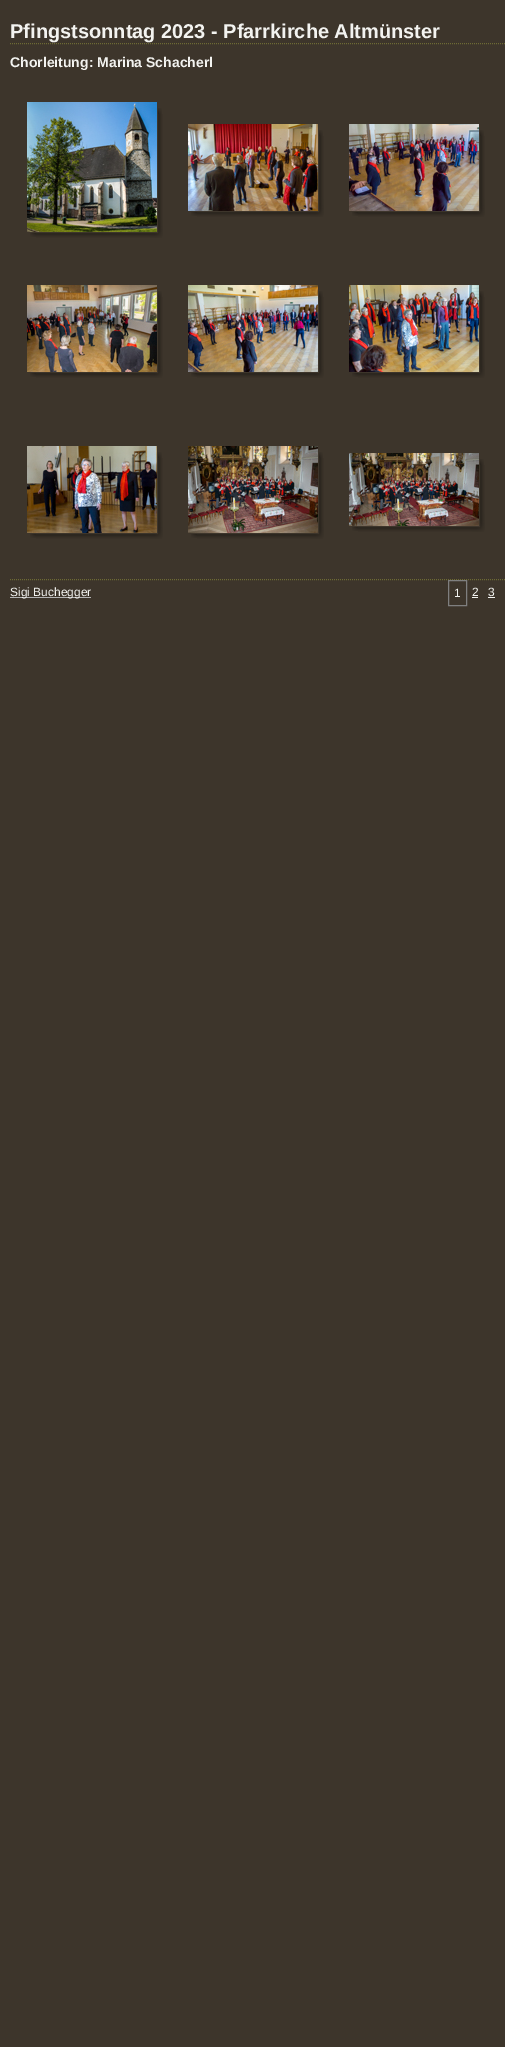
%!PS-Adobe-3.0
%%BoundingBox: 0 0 505 2047
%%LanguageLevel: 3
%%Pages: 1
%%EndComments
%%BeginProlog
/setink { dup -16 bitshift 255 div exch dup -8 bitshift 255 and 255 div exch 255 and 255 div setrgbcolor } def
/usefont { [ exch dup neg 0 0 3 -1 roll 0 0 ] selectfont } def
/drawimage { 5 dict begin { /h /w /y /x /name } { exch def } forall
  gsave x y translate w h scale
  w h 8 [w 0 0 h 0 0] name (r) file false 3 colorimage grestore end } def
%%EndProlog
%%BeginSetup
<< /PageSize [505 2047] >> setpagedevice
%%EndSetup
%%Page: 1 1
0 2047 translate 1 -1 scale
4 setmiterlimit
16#3D352B setink
0 0 505 2047 rectfill
16#6D6A34 setink
[1 1] 0 setdash
10 43.5 moveto 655 43.5 lineto stroke
/LiberationSans-Bold 20 usefont
16#F3F3F0 setink
10 38 moveto (Pfingstsonntag 2023 - Pfarrkirche Altmünster) show
/LiberationSans-Bold 14 usefont
10 67 moveto (Chorleitung: Marina Schacherl) show
16#6D6A34 setink
10 579.5 moveto 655 579.5 lineto stroke
(img1.raw) 36 114 127 124 drawimage
16#3D352B setink
[] 0 setdash
26.5 101.5 131 131 rectstroke
(img2.raw) 27 102 130 130 drawimage
(img3.raw) 158 108 4 6 drawimage
(img4.raw) 30 233 6 4 drawimage
(img5.raw) 197 136 127 81 drawimage
187.5 123.5 131 88 rectstroke
(img6.raw) 188 124 130 87 drawimage
(img3.raw) 319 130 4 6 drawimage
(img4.raw) 191 212 6 4 drawimage
(img5.raw) 358 136 127 81 drawimage
348.5 123.5 131 88 rectstroke
(img7.raw) 349 124 130 87 drawimage
(img3.raw) 480 130 4 6 drawimage
(img4.raw) 352 212 6 4 drawimage
(img5.raw) 36 297 127 81 drawimage
26.5 284.5 131 88 rectstroke
(img8.raw) 27 285 130 87 drawimage
(img3.raw) 158 291 4 6 drawimage
(img4.raw) 30 373 6 4 drawimage
(img5.raw) 197 297 127 81 drawimage
187.5 284.5 131 88 rectstroke
(img9.raw) 188 285 130 87 drawimage
(img3.raw) 319 291 4 6 drawimage
(img4.raw) 191 373 6 4 drawimage
(img5.raw) 358 297 127 81 drawimage
348.5 284.5 131 88 rectstroke
(img10.raw) 349 285 130 87 drawimage
(img3.raw) 480 291 4 6 drawimage
(img4.raw) 352 373 6 4 drawimage
(img5.raw) 36 458 127 81 drawimage
26.5 445.5 131 88 rectstroke
(img11.raw) 27 446 130 87 drawimage
(img3.raw) 158 452 4 6 drawimage
(img4.raw) 30 534 6 4 drawimage
(img5.raw) 197 458 127 81 drawimage
187.5 445.5 131 88 rectstroke
(img12.raw) 188 446 130 87 drawimage
(img3.raw) 319 452 4 6 drawimage
(img4.raw) 191 534 6 4 drawimage
(img13.raw) 358 465 127 67 drawimage
348.5 452.5 131 74 rectstroke
(img14.raw) 349 453 130 73 drawimage
(img3.raw) 480 459 4 6 drawimage
(img4.raw) 352 527 6 4 drawimage
16#B3B3B3 setink
10 597 81 1 rectfill
/LiberationSans-Regular 12 usefont
16#F3F3F0 setink
10 596 moveto (Sigi Buchegger) show
16#7F7F7F setink
448.5 580.5 18 25 rectstroke
16#F3F3F0 setink
454 597 moveto (1) show
472 596 moveto (2) show
472 597 6 1 rectfill
488 596 moveto (3) show
488 597 7 1 rectfill
showpage
%%EOF
